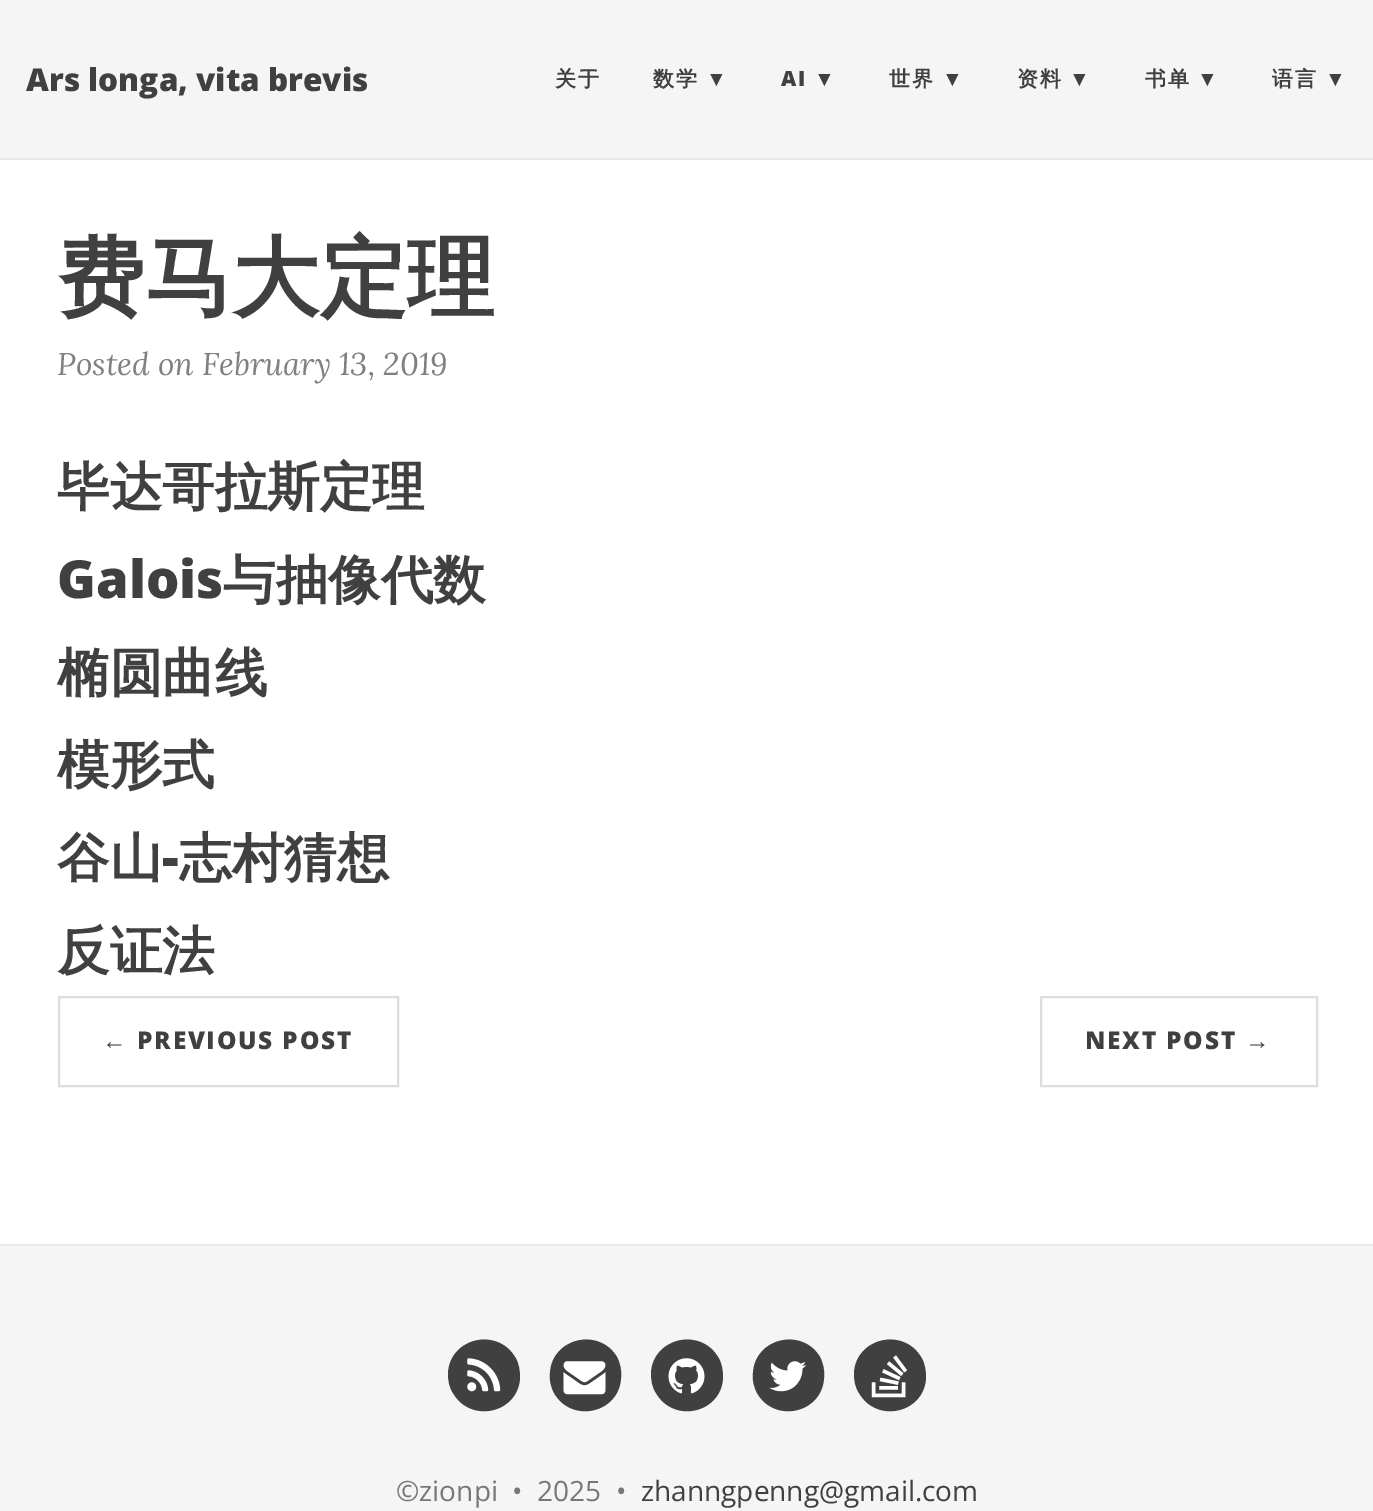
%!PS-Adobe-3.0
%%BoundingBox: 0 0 1373 1511
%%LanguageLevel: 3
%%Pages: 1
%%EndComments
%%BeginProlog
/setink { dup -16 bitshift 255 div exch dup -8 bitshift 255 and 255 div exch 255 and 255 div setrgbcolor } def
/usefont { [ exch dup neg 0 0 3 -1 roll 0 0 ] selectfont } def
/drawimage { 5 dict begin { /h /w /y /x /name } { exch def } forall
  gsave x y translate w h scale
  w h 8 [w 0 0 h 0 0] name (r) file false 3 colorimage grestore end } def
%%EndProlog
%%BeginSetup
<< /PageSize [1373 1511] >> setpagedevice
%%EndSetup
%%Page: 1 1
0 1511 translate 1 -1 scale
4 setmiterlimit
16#FFFFFF setink
0 0 1373 1511 rectfill
16#F5F5F5 setink
0 0 1373 158 rectfill
16#EAEAEA setink
0 158 1373 2 rectfill
/OpenSans-ExtraBold 31.5 usefont
16#404040 setink
26 91 moveto (Ars longa, vita brevis) show
/WenQuanYiZenHei-Bold 21 usefont
555 86 moveto 1.75 0 (关于) ashow
653 86 moveto 1.75 0 (数学) ashow
/LiberationSans-Bold 21 usefont
706 86 moveto 1.75 0 (▼) ashow
/OpenSans-ExtraBold 21 usefont
781 86 moveto 1.75 0 (AI) ashow
/LiberationSans-Bold 21 usefont
814 86 moveto 1.75 0 (▼) ashow
/WenQuanYiZenHei-Bold 21 usefont
889 86 moveto 1.75 0 (世界) ashow
/LiberationSans-Bold 21 usefont
942 86 moveto 1.75 0 (▼) ashow
/WenQuanYiZenHei-Bold 21 usefont
1017 86 moveto 1.75 0 (资料) ashow
/LiberationSans-Bold 21 usefont
1069 86 moveto 1.75 0 (▼) ashow
/WenQuanYiZenHei-Bold 21 usefont
1145 86 moveto 1.75 0 (书单) ashow
/LiberationSans-Bold 21 usefont
1197 86 moveto 1.75 0 (▼) ashow
/WenQuanYiZenHei-Bold 21 usefont
1272 86 moveto 1.75 0 (语言) ashow
/LiberationSans-Bold 21 usefont
1325 86 moveto 1.75 0 (▼) ashow
/WenQuanYiZenHei-Bold 87.5 usefont
57 308 moveto (费马大定理) show
/Lora-Italic 31.5 usefont
16#808080 setink
57 375 moveto (Posted on February 13, 2019) show
/WenQuanYiZenHei-Bold 52.5 usefont
16#404040 setink
57 505 moveto (毕达哥拉斯定理) show
/OpenSans-ExtraBold 52.5 usefont
57 598 moveto (Galois) show
/WenQuanYiZenHei-Bold 52.5 usefont
[
    [(与抽像代数) 223 598]
    [(椭圆曲线) 57 691]
    [(模形式) 57 783]
    [(谷山) 57 876]
] { aload pop moveto show } forall
/OpenSans-ExtraBold 52.5 usefont
162 876 moveto (-) show
/WenQuanYiZenHei-Bold 52.5 usefont
179 876 moveto (志村猜想) show
57 969 moveto (反证法) show
16#DDDDDD setink
2 setlinewidth
59 997 339 89 rectstroke
/LiberationSans-Bold 24.5 usefont
16#404040 setink
102 1049 moveto 1.75 0 (←) ashow
/OpenSans-ExtraBold 24.5 usefont
137 1049 moveto 1.75 0 (PREVIOUS POST) ashow
16#DDDDDD setink
1041 997 276 89 rectstroke
16#404040 setink
1085 1049 moveto 1.75 0 (NEXT POST) ashow
/LiberationSans-Bold 24.5 usefont
1245 1049 moveto 1.75 0 (→) ashow
16#F5F5F5 setink
0 1246 1373 265 rectfill
16#EAEAEA setink
0 1244 1373 2 rectfill
16#404040 setink
515 1357 moveto 519 1363 520 1371 520 1378 curveto 518 1413 471 1424 453 1393 curveto 449 1387 448 1380 448 1373 curveto 450 1338 497 1327 515 1357 curveto closepath fill
(img1.raw) 467 1358 34 34 drawimage
617 1357 moveto 620 1363 622 1371 621 1378 curveto 619 1413 572 1424 554 1393 curveto 551 1387 549 1380 550 1373 curveto 552 1338 599 1327 617 1357 curveto closepath fill
(img2.raw) 563 1361 43 34 drawimage
718 1357 moveto 722 1363 723 1371 723 1378 curveto 721 1413 674 1424 656 1393 curveto 652 1387 651 1380 651 1373 curveto 653 1338 700 1327 718 1357 curveto closepath fill
(img3.raw) 668 1358 37 36 drawimage
820 1357 moveto 823 1363 825 1371 824 1378 curveto 822 1413 775 1424 757 1393 curveto 754 1387 752 1380 753 1373 curveto 755 1338 802 1327 820 1357 curveto closepath fill
(img4.raw) 769 1361 37 31 drawimage
921 1357 moveto 925 1363 926 1371 926 1378 curveto 924 1413 877 1424 859 1393 curveto 855 1387 854 1380 854 1373 curveto 856 1338 903 1327 921 1357 curveto closepath fill
(img5.raw) 871 1355 37 43 drawimage
/OpenSans-Regular 28 usefont
16#777777 setink
[
    [(©zionpi) 396 1501]
    [(•) 512 1501]
    [(2025) 537 1501]
    [(•) 616 1501]
] { aload pop moveto show } forall
16#404040 setink
641 1501 moveto (zhanngpenng@gmail.com) show
showpage
%%EOF
